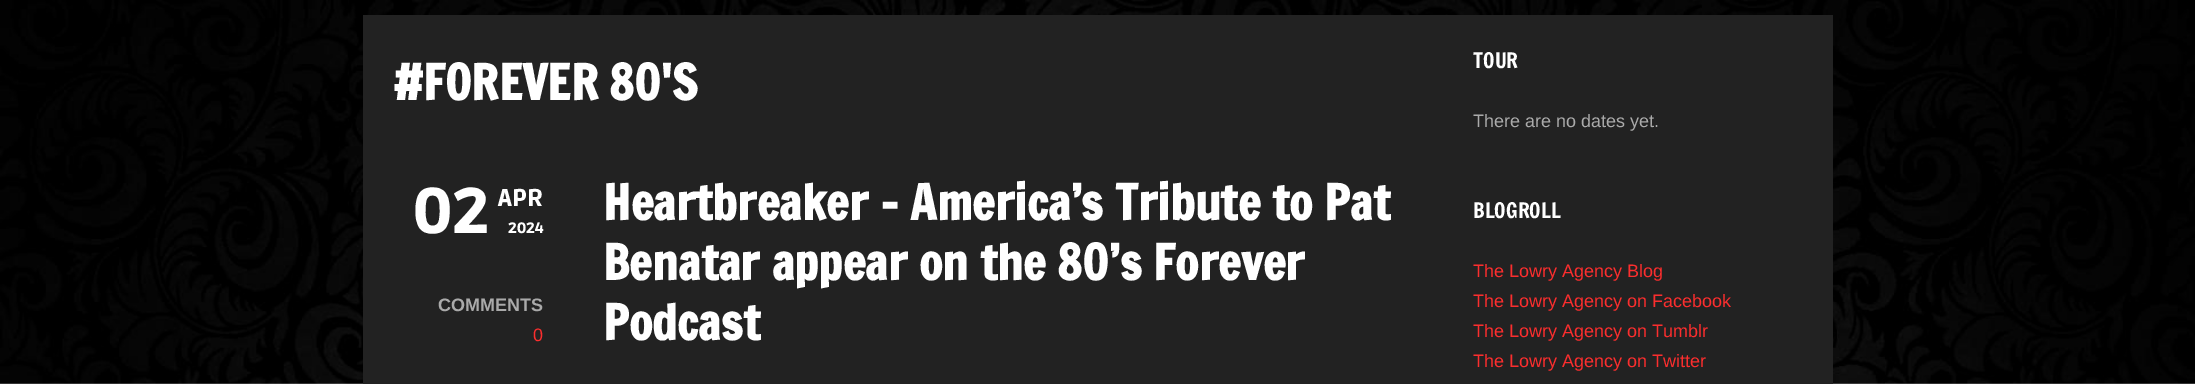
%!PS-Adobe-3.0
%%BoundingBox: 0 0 2195 384
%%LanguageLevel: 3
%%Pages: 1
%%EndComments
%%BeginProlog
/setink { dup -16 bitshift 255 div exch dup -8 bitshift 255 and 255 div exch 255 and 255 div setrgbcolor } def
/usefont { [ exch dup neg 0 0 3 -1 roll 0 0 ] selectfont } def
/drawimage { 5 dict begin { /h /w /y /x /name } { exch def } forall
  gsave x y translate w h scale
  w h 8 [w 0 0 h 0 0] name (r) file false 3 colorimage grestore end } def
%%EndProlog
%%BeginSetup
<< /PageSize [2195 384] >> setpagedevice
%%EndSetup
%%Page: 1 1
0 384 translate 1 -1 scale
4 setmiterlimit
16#FFFFFF setink
0 0 2195 384 rectfill
(img1.raw) 0 0 2195 384 drawimage
16#222222 setink
363 15 1470 369 rectfill
/FrancoisOne-Bold 48 usefont
16#FFFFFF setink
393 100 moveto (#FOREVER 80'S) show
/Ruda-Black 64 usefont
413 233 moveto (02) show
/Ruda-Black 24 usefont
498 206 moveto (APR) show
/Ruda-Black 15 usefont
508 233 moveto (2024) show
/LiberationSans-Bold 18 usefont
16#AAAAAA setink
438 311 moveto (COMMENTS) show
/LiberationSans-Regular 18 usefont
16#FB2E2E setink
533 341 moveto (0) show
/FrancoisOne-Bold 48 usefont
16#FFFFFF setink
[
    [(Heartbreaker – America’s Tribute to Pat) 603 220]
    [(Benatar appear on the 80’s Forever) 603 280]
    [(Podcast) 603 340]
] { aload pop moveto show } forall
/FrancoisOne-Regular 21 usefont
1473 68 moveto (TOUR) show
/LiberationSans-Regular 18 usefont
16#AAAAAA setink
1473 127 moveto (There are no dates yet.) show
/FrancoisOne-Regular 21 usefont
16#FFFFFF setink
1473 218 moveto (BLOGROLL) show
/LiberationSans-Regular 18 usefont
16#FB2E2E setink
[
    [(The Lowry Agency Blog) 1473 277]
    [(The Lowry Agency on Facebook) 1473 307]
    [(The Lowry Agency on Tumblr) 1473 337]
    [(The Lowry Agency on Twitter) 1473 367]
] { aload pop moveto show } forall
showpage
%%EOF
